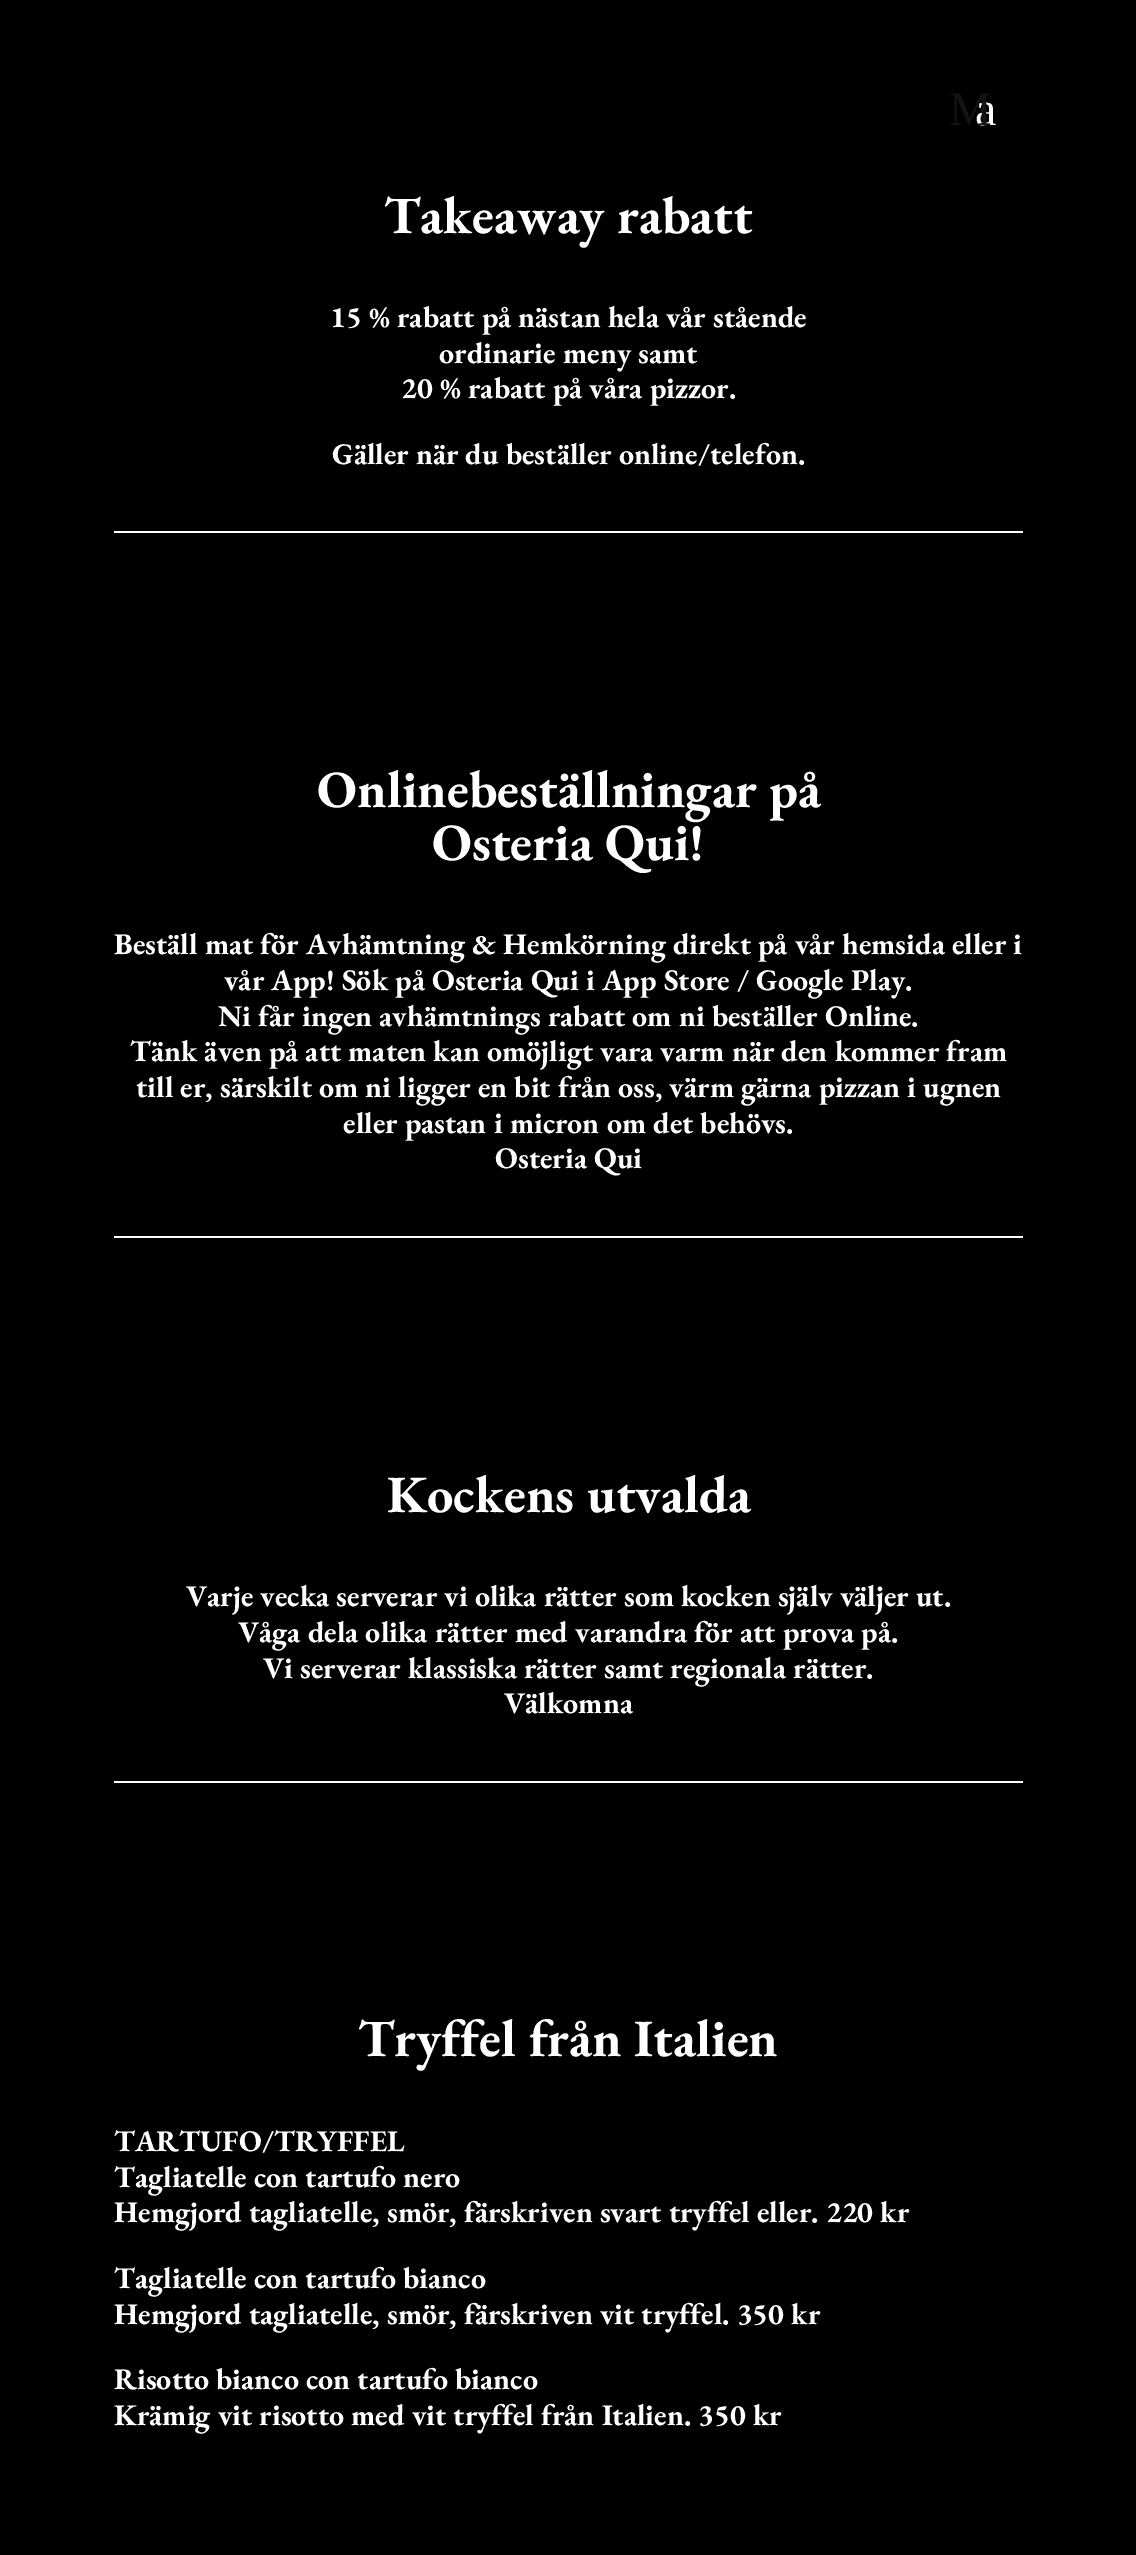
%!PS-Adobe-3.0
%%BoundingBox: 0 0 1136 2555
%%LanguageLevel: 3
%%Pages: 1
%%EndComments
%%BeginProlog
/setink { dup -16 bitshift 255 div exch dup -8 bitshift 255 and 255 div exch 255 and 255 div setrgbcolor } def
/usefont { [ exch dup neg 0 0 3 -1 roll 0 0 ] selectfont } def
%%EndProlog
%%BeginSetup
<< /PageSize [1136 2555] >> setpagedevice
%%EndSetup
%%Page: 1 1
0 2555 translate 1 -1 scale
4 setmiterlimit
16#000000 setink
0 0 1136 2555 rectfill
/LiberationSerif-Regular 48 usefont
16#FFFFFF setink
975 125 moveto (a) show
16#131313 setink
949 125 moveto (M) show
/EBGaramond-Bold 52.5 usefont
16#FFFFFF setink
384 233 moveto (Takeaway rabatt) show
/EBGaramond-Bold 30 usefont
[
    [(15 % rabatt på nästan hela vår stående) 330 327]
    [(ordinarie meny samt) 439 363]
    [(20 % rabatt på våra pizzor.) 401 398]
    [(Gäller när du beställer online/telefon.) 332 464]
] { aload pop moveto show } forall
114 531 909 2 rectfill
/EBGaramond-Bold 52.5 usefont
317 807 moveto (Onlinebeställningar på) show
432 860 moveto (Osteria Qui!) show
/EBGaramond-Bold 30 usefont
[
    [(Beställ mat för Avhämtning & Hemkörning direkt på vår hemsida eller i) 114 954]
    [(vår App! Sök på Osteria Qui i App Store / Google Play.) 224 990]
    [(Ni får ingen avhämtnings rabatt om ni beställer Online.) 218 1026]
    [(Tänk även på att maten kan omöjligt vara varm när den kommer fram) 130 1061]
    [(till er, särskilt om ni ligger en bit från oss, värm gärna pizzan i ugnen) 136 1097]
    [(eller pastan i micron om det behövs.) 343 1133]
    [(Osteria Qui) 495 1168]
] { aload pop moveto show } forall
114 1236 909 2 rectfill
/EBGaramond-Bold 52.5 usefont
387 1512 moveto (Kockens utvalda) show
/EBGaramond-Bold 30 usefont
[
    [(Varje vecka serverar vi olika rätter som kocken själv väljer ut.) 186 1606]
    [(Våga dela olika rätter med varandra för att prova på.) 238 1642]
    [(Vi serverar klassiska rätter samt regionala rätter.) 263 1678]
    [(Välkomna) 504 1713]
] { aload pop moveto show } forall
114 1781 909 2 rectfill
/EBGaramond-Bold 52.5 usefont
358 2056 moveto (Tryffel från Italien) show
/EBGaramond-Bold 30 usefont
[
    [(TARTUFO/TRYFFEL) 114 2151]
    [(Tagliatelle con tartufo nero) 114 2187]
    [(Hemgjord tagliatelle, smör, färskriven svart tryffel eller. 220 kr) 114 2222]
    [(Tagliatelle con tartufo bianco) 114 2288]
    [(Hemgjord tagliatelle, smör, färskriven vit tryffel. 350 kr) 114 2324]
    [(Risotto bianco con tartufo bianco) 114 2389]
    [(Krämig vit risotto med vit tryffel från Italien. 350 kr) 114 2425]
] { aload pop moveto show } forall
showpage
%%EOF
